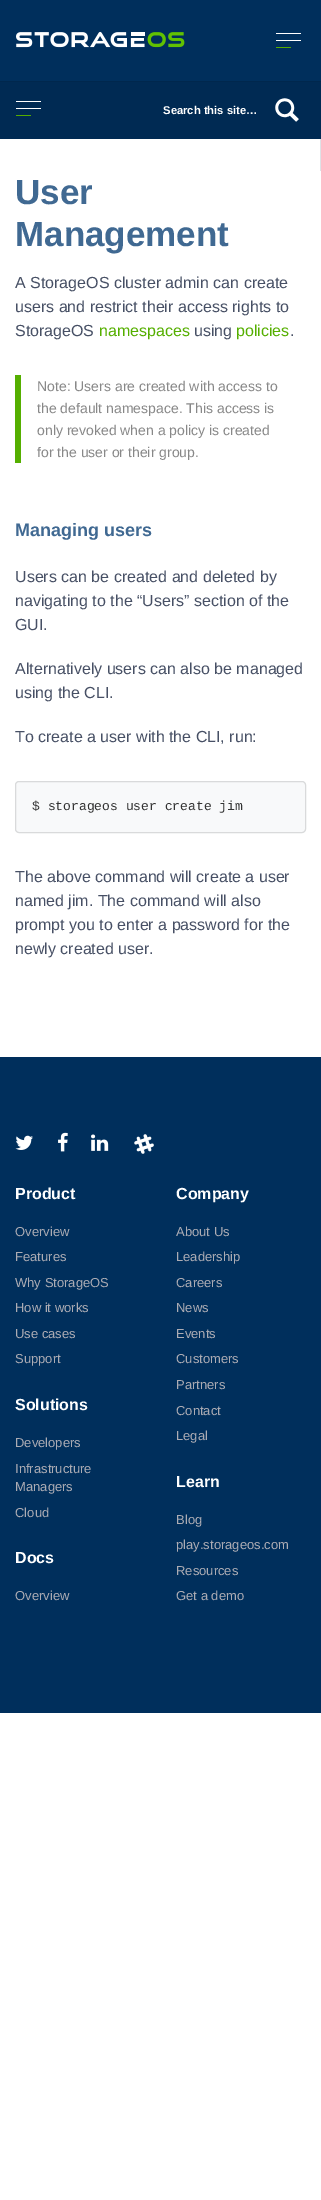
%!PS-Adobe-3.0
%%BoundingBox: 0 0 321 2200
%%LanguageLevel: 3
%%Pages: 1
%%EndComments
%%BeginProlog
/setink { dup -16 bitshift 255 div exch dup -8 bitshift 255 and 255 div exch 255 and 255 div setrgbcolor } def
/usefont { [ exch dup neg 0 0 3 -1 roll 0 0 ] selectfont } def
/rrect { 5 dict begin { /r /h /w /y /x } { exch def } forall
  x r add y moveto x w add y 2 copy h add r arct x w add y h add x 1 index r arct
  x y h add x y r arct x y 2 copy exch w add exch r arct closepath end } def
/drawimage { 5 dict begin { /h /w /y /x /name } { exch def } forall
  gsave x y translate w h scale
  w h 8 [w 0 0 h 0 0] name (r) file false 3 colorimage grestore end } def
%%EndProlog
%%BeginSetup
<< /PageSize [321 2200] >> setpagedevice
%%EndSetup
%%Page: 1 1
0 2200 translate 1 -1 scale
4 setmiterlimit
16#FFFFFF setink
0 0 321 2200 rectfill
16#002F5C setink
0 0 321 81 rectfill
(img1.raw) 16 31 169 17 drawimage
16#FFFFFF setink
276 33 25 1 0.5 rrect fill
276 40 25 1 0.5 rrect fill
16#55AC00 setink
276 47 15 1 0.5 rrect fill
16#002A53 setink
0 82 321 57 rectfill
16#FFFFFF setink
16 101 25 1 0.5 rrect fill
16 108 25 1 0.5 rrect fill
16#55AC00 setink
16 115 15 1 0.5 rrect fill
(img2.raw) 275 98 24 24 drawimage
16#00274D setink
0 81 321 1 rectfill
/LiberationSans-Bold 11.25 usefont
16#FFFFFF setink
163 114 moveto (Search this site…) show
16#DEE2E6 setink
320 139 1 32 rectfill
/LiberationSans-Bold 35 usefont
16#406992 setink
15 204 moveto (User) show
15 246 moveto (Management) show
/LiberationSans-Regular 16 usefont
16#475065 setink
[
    [(A StorageOS cluster admin can create) 15 288]
    [(users and restrict their access rights to) 15 312]
    [(StorageOS) 15 336]
] { aload pop moveto show } forall
16#55AF00 setink
99 336 moveto (namespaces) show
16#475065 setink
194 336 moveto (using) show
16#55AF00 setink
236 336 moveto (policies) show
16#475065 setink
290 336 moveto (.) show
16#55AF00 setink
15 375 6 88 rectfill
/LiberationSans-Regular 14 usefont
16#888888 setink
[
    [(Note: Users are created with access to) 37 391]
    [(the default namespace. This access is) 37 413]
    [(only revoked when a policy is created) 37 435]
    [(for the user or their group.) 37 457]
] { aload pop moveto show } forall
/LiberationSans-Bold 18 usefont
16#406992 setink
15 536 moveto (Managing users) show
/LiberationSans-Regular 16 usefont
16#475065 setink
[
    [(Users can be created and deleted by) 15 582]
    [(navigating to the “Users” section of the) 15 606]
    [(GUI.) 15 630]
    [(Alternatively users can also be managed) 15 674]
    [(using the CLI.) 15 698]
    [(To create a user with the CLI, run:) 15 742]
] { aload pop moveto show } forall
16#F8F9FA setink
15.5 781.5 290 51 3.5 rrect gsave fill grestore
16#D9DADB setink
stroke
/LiberationMono-Regular 13 usefont
16#333333 setink
32 810 moveto ($ storageos user create jim) show
/LiberationSans-Regular 16 usefont
16#475065 setink
[
    [(The above command will create a user) 15 882]
    [(named jim. The command will also) 15 906]
    [(prompt you to enter a password for the) 15 930]
    [(newly created user.) 15 954]
] { aload pop moveto show } forall
16#002F5C setink
0 1057 321 656 rectfill
(img3.raw) 15 1135 18 15 drawimage
(img4.raw) 58 1132 10 20 drawimage
(img5.raw) 91 1134 18 17 drawimage
(img6.raw) 134 1134 20 20 drawimage
/LiberationSans-Bold 16 usefont
16#FFFFFF setink
15 1199 moveto (Product) show
/LiberationSans-Regular 13 usefont
16#ACACB4 setink
[
    [(Overview) 15 1236]
    [(Features) 15 1261]
    [(Why StorageOS) 15 1287]
    [(How it works) 15 1312]
    [(Use cases) 15 1338]
    [(Support) 15 1363]
] { aload pop moveto show } forall
/LiberationSans-Bold 16 usefont
16#FFFFFF setink
15 1410 moveto (Solutions) show
/LiberationSans-Regular 13 usefont
16#ACACB4 setink
[
    [(Developers) 15 1447]
    [(Infrastructure) 15 1473]
    [(Managers) 15 1491]
    [(Cloud) 15 1517]
] { aload pop moveto show } forall
/LiberationSans-Bold 16 usefont
16#FFFFFF setink
15 1563 moveto (Docs) show
/LiberationSans-Regular 13 usefont
16#ACACB4 setink
15 1600 moveto (Overview) show
/LiberationSans-Bold 16 usefont
16#FFFFFF setink
176 1199 moveto (Company) show
/LiberationSans-Regular 13 usefont
16#ACACB4 setink
[
    [(About Us) 176 1236]
    [(Leadership) 176 1261]
    [(Careers) 176 1287]
    [(News) 176 1312]
    [(Events) 176 1338]
    [(Customers) 176 1363]
    [(Partners) 176 1389]
    [(Contact) 176 1415]
    [(Legal) 176 1440]
] { aload pop moveto show } forall
/LiberationSans-Bold 16 usefont
16#FFFFFF setink
176 1487 moveto (Learn) show
/LiberationSans-Regular 13 usefont
16#ACACB4 setink
[
    [(Blog) 176 1524]
    [(play.storageos.com) 176 1549]
    [(Resources) 176 1575]
    [(Get a demo) 176 1600]
] { aload pop moveto show } forall
showpage
%%EOF
